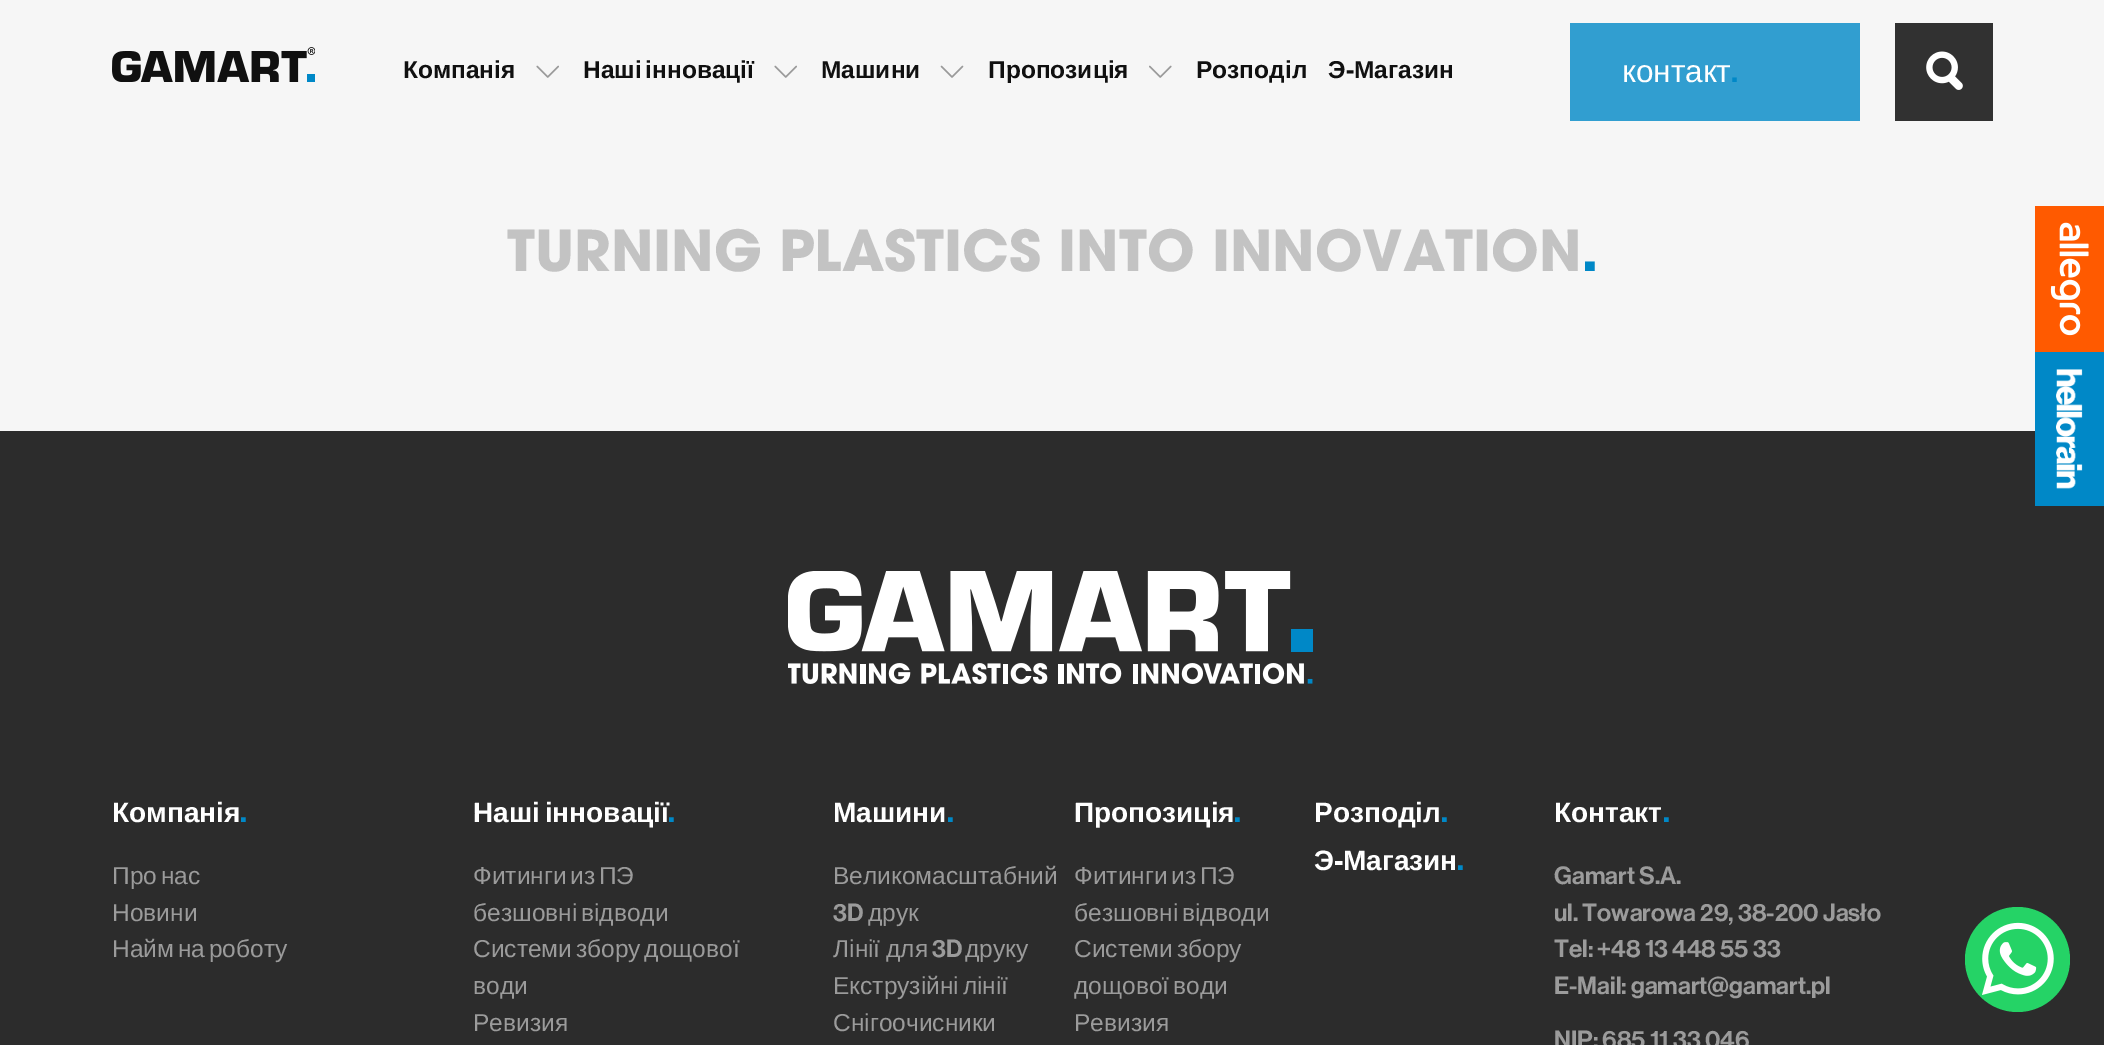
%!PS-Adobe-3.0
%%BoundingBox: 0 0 2104 1045
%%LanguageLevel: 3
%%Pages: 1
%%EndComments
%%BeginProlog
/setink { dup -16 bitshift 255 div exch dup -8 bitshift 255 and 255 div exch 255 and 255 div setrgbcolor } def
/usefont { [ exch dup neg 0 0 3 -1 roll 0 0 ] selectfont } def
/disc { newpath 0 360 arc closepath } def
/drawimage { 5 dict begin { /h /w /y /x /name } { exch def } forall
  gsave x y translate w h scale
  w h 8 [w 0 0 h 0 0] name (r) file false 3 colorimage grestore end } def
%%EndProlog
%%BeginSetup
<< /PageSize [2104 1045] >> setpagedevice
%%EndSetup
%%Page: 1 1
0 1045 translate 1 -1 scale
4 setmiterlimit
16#F6F6F6 setink
0 0 2104 1045 rectfill
(img1.raw) 112 47 203 35 drawimage
/LiberationSans-Bold 24.5 usefont
16#101010 setink
403 78 moveto (Компанія) show
(img2.raw) 536 65 23 13 drawimage
583 78 moveto -3 0 32 (Наші інновації) widthshow
(img2.raw) 774 65 23 13 drawimage
821 78 moveto (Машини) show
(img3.raw) 940 65 24 13 drawimage
988 78 moveto (Пропозиція) show
(img4.raw) 1149 65 23 13 drawimage
1196 78 moveto (Розподіл) show
1328 78 moveto (Э) show
/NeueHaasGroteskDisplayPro-Bold 24.5 usefont
1346 78 moveto (-) show
/LiberationSans-Bold 24.5 usefont
1354 78 moveto (Магазин) show
16#319ED0 setink
1570 23 290 98 rectfill
/LiberationSans-Regular 31.5 usefont
16#FFFFFF setink
1622 82 moveto (контакт) show
/NeueHaasGroteskDisplayPro-Medium 31.5 usefont
16#0088C7 setink
1731 82 moveto (.) show
16#313131 setink
1895 23 98 98 rectfill
(img5.raw) 1926 51 37 39 drawimage
/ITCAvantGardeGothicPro-Bold 56 usefont
16#C3C3C3 setink
507 271 moveto (TURNING PLASTICS INTO INNOVATION) show
16#0088C7 setink
1581 271 moveto (.) show
16#FF5A00 setink
2035 206 69 146 rectfill
(img6.raw) 2050 222 39 114 drawimage
16#2C2C2C setink
0 431 2104 614 rectfill
16#0088C7 setink
2035 352 69 154 rectfill
(img7.raw) 2056 369 27 120 drawimage
(img8.raw) 788 571 525 113 drawimage
/LiberationSans-Bold 28 usefont
16#FFFFFF setink
112 822 moveto (Компанія) show
/NeueHaasGroteskDisplayPro-Bold 28 usefont
16#0088C7 setink
240 822 moveto (.) show
/LiberationSans-Regular 24.5 usefont
16#9B9B9B setink
112 884 moveto -3 0 32 (Про нас) widthshow
112 921 moveto (Новини) show
112 957 moveto -3 0 32 (Найм на роботу) widthshow
/LiberationSans-Bold 28 usefont
16#FFFFFF setink
473 822 moveto -3 0 32 (Наші інновації) widthshow
/NeueHaasGroteskDisplayPro-Bold 28 usefont
16#0088C7 setink
668 822 moveto (.) show
/LiberationSans-Regular 24.5 usefont
16#9B9B9B setink
473 884 moveto -3 0 32 (Фитинги из ПЭ) widthshow
473 921 moveto -3 0 32 (безшовні відводи) widthshow
473 957 moveto -3 0 32 (Системи збору дощової) widthshow
473 994 moveto (води) show
473 1031 moveto (Ревизия) show
/LiberationSans-Bold 28 usefont
16#FFFFFF setink
833 822 moveto (Машини) show
/NeueHaasGroteskDisplayPro-Bold 28 usefont
16#0088C7 setink
947 822 moveto (.) show
/LiberationSans-Regular 24.5 usefont
16#9B9B9B setink
833 884 moveto (Великомасштабний) show
/NeueHaasGroteskDisplayPro-Medium 24.5 usefont
833 921 moveto (3D) show
/LiberationSans-Regular 24.5 usefont
868 921 moveto (друк) show
833 957 moveto -1 0 32 (Лінії для) widthshow
/NeueHaasGroteskDisplayPro-Medium 24.5 usefont
932 957 moveto (3D) show
/LiberationSans-Regular 24.5 usefont
965 957 moveto (друку) show
833 994 moveto -3 0 32 (Екструзійні лінії) widthshow
833 1031 moveto (Снігоочисники) show
/LiberationSans-Bold 28 usefont
16#FFFFFF setink
1074 822 moveto (Пропозиція) show
/NeueHaasGroteskDisplayPro-Bold 28 usefont
16#0088C7 setink
1234 822 moveto (.) show
/LiberationSans-Regular 24.5 usefont
16#9B9B9B setink
1074 884 moveto -3 0 32 (Фитинги из ПЭ) widthshow
1074 921 moveto -3 0 32 (безшовні відводи) widthshow
1074 957 moveto -3 0 32 (Системи збору) widthshow
1074 994 moveto -3 0 32 (дощової води) widthshow
1074 1031 moveto (Ревизия) show
/LiberationSans-Bold 28 usefont
16#FFFFFF setink
1314 822 moveto (Розподіл) show
/NeueHaasGroteskDisplayPro-Bold 28 usefont
16#0088C7 setink
1441 822 moveto (.) show
/LiberationSans-Bold 28 usefont
16#FFFFFF setink
1314 870 moveto (Э) show
/NeueHaasGroteskDisplayPro-Bold 28 usefont
1334 870 moveto (-) show
/LiberationSans-Bold 28 usefont
1343 870 moveto (Магазин) show
/NeueHaasGroteskDisplayPro-Bold 28 usefont
16#0088C7 setink
1457 870 moveto (.) show
/LiberationSans-Bold 28 usefont
16#FFFFFF setink
1554 822 moveto (Контакт) show
/NeueHaasGroteskDisplayPro-Bold 28 usefont
16#0088C7 setink
1663 822 moveto (.) show
/NeueHaasGroteskDisplayPro-Medium 24.5 usefont
16#9B9B9B setink
[
    [(Gamart S.A.) 1554 884]
    [(ul. Towarowa 29, 38-200 Jasło) 1554 921]
    [(Tel: +48 13 448 55 33) 1554 957]
    [(E-Mail: gamart@gamart.pl) 1554 994]
    [(NIP: 685 11 33 046) 1554 1048]
] { aload pop moveto show } forall
16#25D366 setink
2017.5 959.5 52.5 disc fill
(img9.raw) 1982 922 72 73 drawimage
showpage
%%EOF
